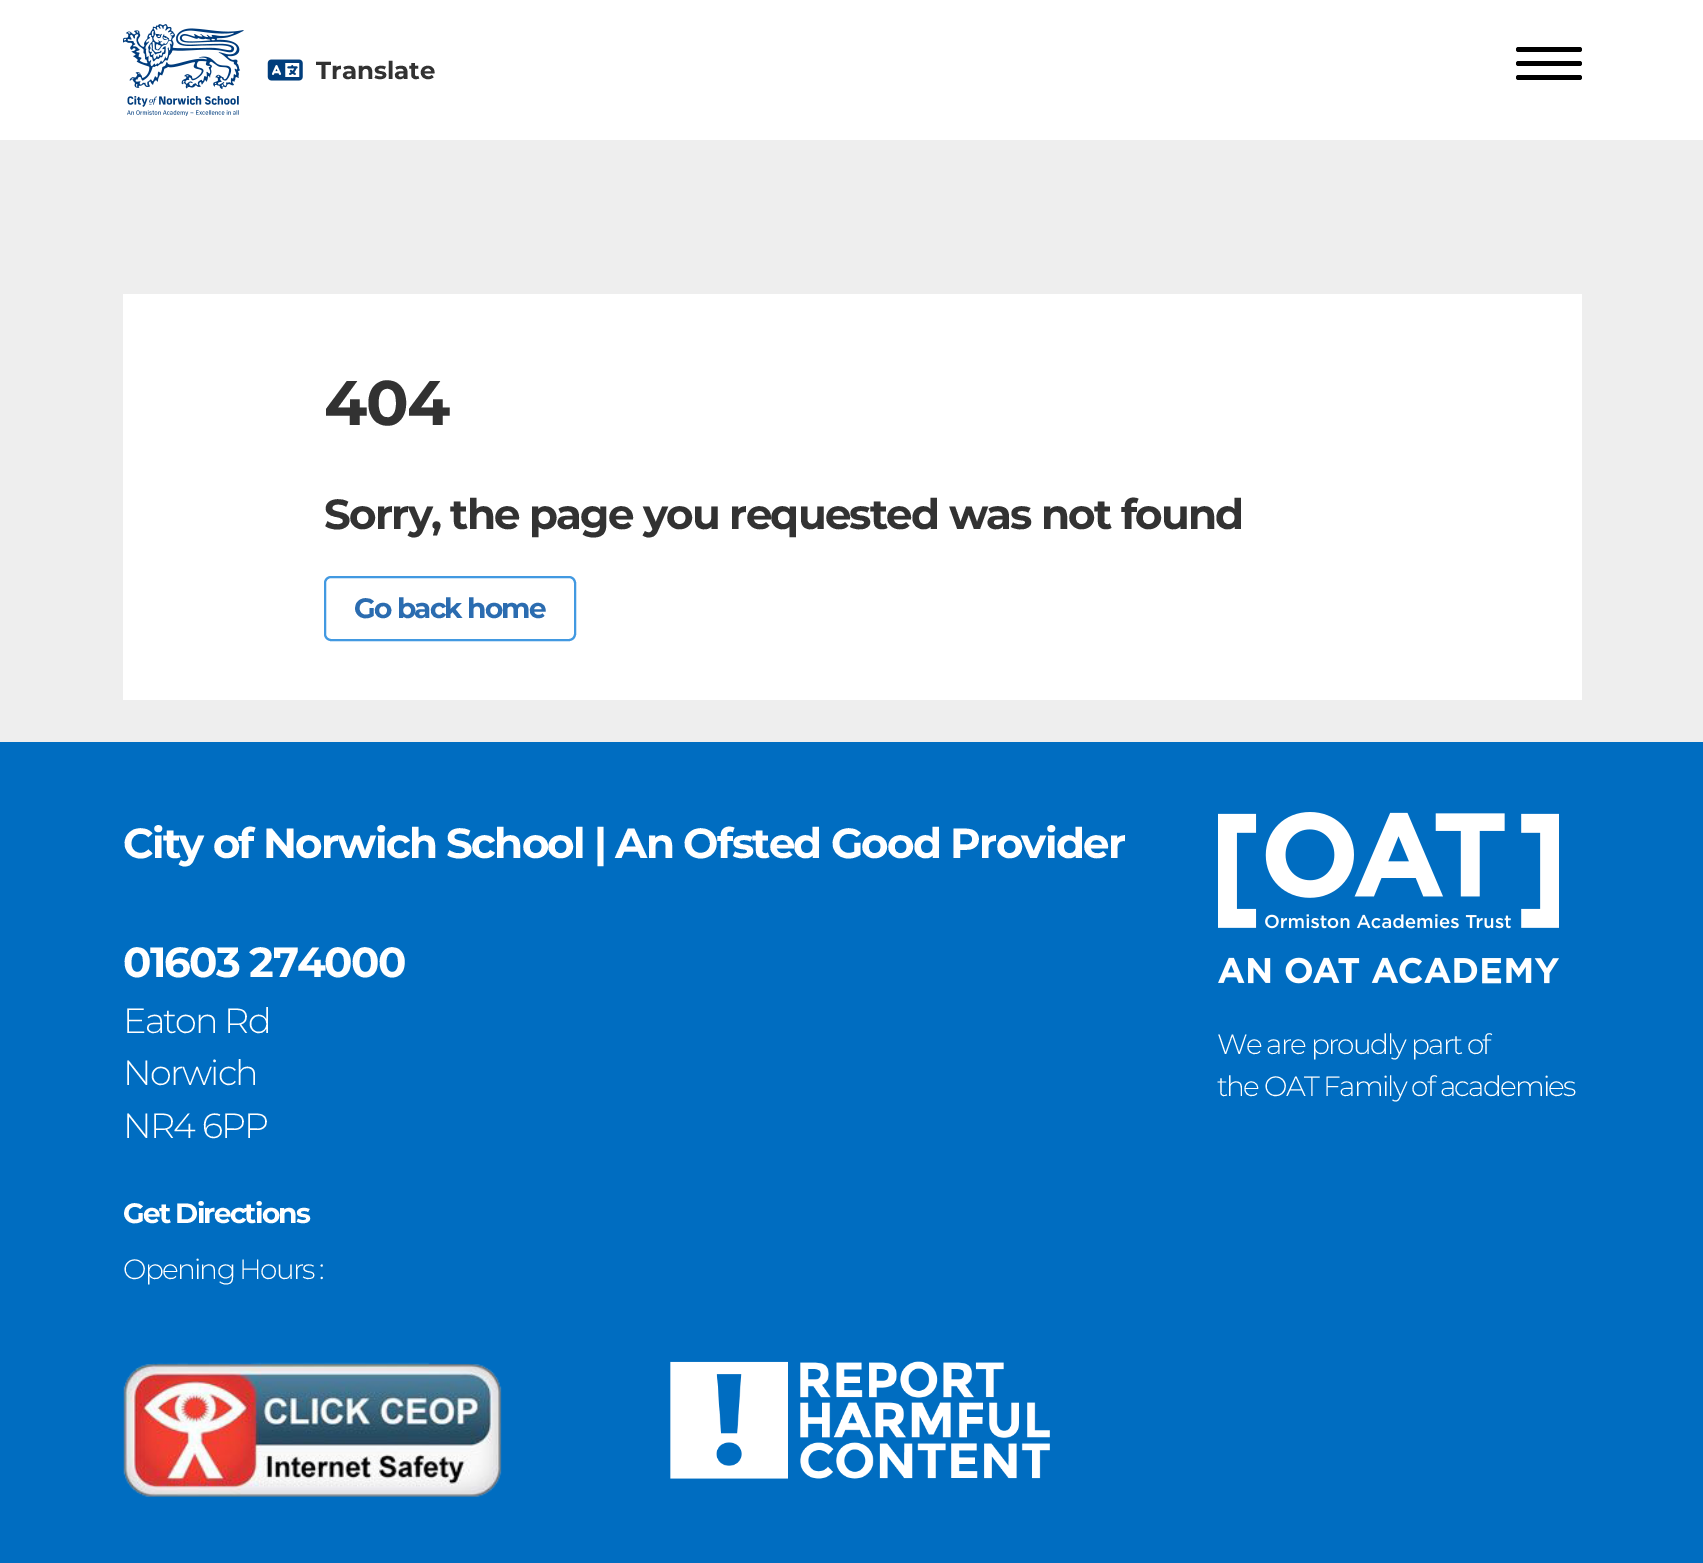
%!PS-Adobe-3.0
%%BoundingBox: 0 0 1703 1563
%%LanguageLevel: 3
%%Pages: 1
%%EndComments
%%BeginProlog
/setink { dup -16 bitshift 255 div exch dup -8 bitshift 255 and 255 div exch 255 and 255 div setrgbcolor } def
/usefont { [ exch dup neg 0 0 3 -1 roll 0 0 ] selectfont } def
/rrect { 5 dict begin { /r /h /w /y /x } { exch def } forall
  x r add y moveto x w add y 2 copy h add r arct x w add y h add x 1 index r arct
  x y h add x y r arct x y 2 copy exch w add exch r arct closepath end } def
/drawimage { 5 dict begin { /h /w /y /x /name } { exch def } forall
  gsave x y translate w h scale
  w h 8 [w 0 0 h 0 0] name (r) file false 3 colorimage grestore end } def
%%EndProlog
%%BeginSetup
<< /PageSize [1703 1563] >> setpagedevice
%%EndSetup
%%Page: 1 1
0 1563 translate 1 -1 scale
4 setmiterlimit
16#EEEEEE setink
0 0 1703 1563 rectfill
16#FFFFFF setink
0 0 1703 140 rectfill
(img1.raw) 123 24 121 92 drawimage
(img2.raw) 267 59 36 22 drawimage
/Montserrat-Bold 24.5 usefont
16#323232 setink
316 79 moveto (Translate) show
16#000000 setink
1516 75 66 5 2.5 rrect fill
1516 47 66 5 2.5 rrect fill
1516 61 66 5 2.5 rrect fill
16#FFFFFF setink
123 294 1459 406 rectfill
/Montserrat-Bold 63 usefont
16#323232 setink
324 425 moveto -1.75 0 (404) ashow
/Montserrat-Bold 42 usefont
324 529 moveto -1.75 0 (Sorry, the page you requested was not found) ashow
16#4299E1 setink
2 setlinewidth
325 577 250 63 6 rrect stroke
/Montserrat-Bold 28 usefont
16#2B6CB0 setink
354 618 moveto -1.75 0 (Go back home) ashow
16#006DC1 setink
0 742 1703 821 rectfill
/Montserrat-Bold 42 usefont
16#FFFFFF setink
123 858 moveto -1.75 0 (City of Norwich School | An Ofsted Good Provider) ashow
123 977 moveto -1.75 0 (01603 274000) ashow
/Montserrat-Light 35 usefont
123 1033 moveto -1.75 0 (Eaton Rd) ashow
123 1085 moveto -1.75 0 (Norwich) ashow
123 1138 moveto -1.75 0 (NR4 6PP) ashow
/Montserrat-Bold 28 usefont
123 1223 moveto -1.75 0 (Get Directions) ashow
/Montserrat-Light 28 usefont
123 1279 moveto -1.75 0 (Opening Hours :) ashow
(img3.raw) 123 1362 379 135 drawimage
(img4.raw) 670 1361 380 118 drawimage
(img5.raw) 1218 812 341 172 drawimage
1217 1054 moveto -1.75 0 (We are proudly part of) ashow
1217 1096 moveto -1.75 0 (the OAT Family of academies) ashow
showpage
%%EOF
